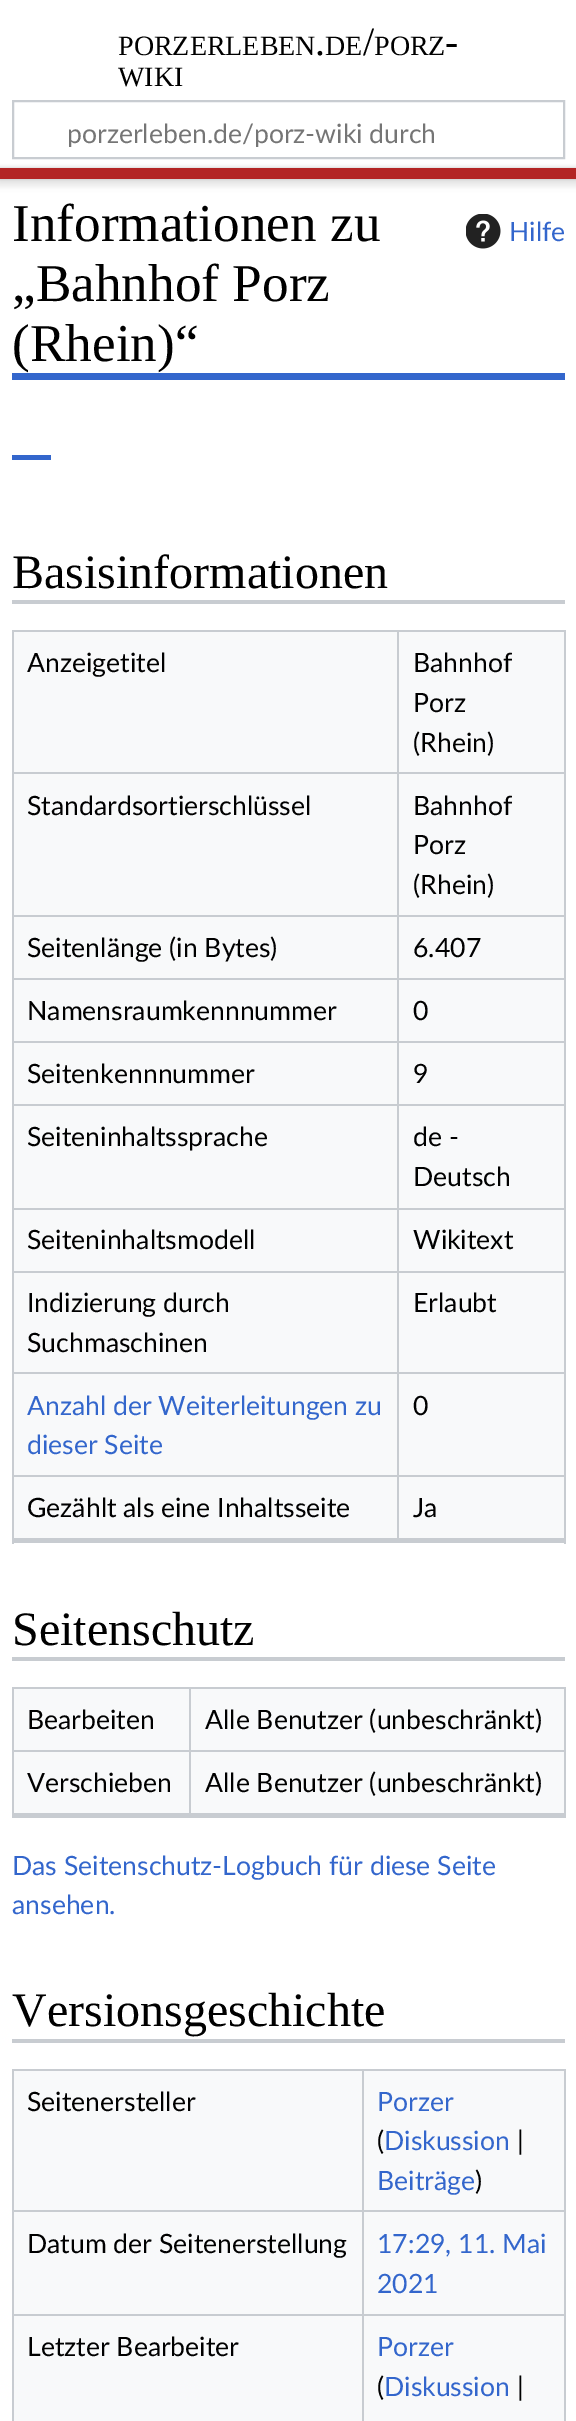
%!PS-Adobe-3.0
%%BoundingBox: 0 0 576 2421
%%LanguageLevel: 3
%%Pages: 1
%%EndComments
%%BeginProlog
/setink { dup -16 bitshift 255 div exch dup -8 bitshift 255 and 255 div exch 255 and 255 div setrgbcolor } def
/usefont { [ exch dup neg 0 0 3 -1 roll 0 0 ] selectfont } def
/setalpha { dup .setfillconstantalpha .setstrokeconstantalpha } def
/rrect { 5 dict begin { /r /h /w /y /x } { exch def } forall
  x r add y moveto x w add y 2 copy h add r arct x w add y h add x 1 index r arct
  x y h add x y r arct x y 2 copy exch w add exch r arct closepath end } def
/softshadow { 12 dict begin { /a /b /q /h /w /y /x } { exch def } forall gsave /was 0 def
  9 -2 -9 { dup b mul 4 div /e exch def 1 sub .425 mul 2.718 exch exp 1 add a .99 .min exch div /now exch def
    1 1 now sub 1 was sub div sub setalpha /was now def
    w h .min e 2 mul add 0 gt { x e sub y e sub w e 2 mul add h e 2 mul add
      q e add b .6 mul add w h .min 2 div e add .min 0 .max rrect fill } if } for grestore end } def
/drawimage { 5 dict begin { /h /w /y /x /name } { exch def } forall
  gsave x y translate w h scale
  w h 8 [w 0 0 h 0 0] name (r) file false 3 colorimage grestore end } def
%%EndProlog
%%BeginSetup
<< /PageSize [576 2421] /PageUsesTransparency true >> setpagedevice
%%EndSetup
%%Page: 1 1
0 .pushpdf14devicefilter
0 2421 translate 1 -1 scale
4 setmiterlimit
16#FFFFFF setink
0 0 576 2421 rectfill
/LiberationSerif-Regular 28 usefont
16#000000 setink
118 55 moveto (PORZERLEBEN) show
325 55 moveto (DE) show
/LiberationSerif-Regular 40 usefont
363 55 moveto (/) show
/LiberationSerif-Regular 28 usefont
374 55 moveto (PORZ) show
/LiberationSerif-Regular 40 usefont
445 55 moveto (-) show
315 55 moveto (.) show
/LiberationSerif-Regular 28 usefont
118 86 moveto (WIKI) show
16#C8CCD1 setink
2 setlinewidth
13 101 551 57 rectstroke
gsave
67 116 371 31 rectclip
/Lato-Regular 26.6 usefont
16#757575 setink
67 143 moveto (porzerleben.de/porz-wiki durch) show
grestore
16#000000 setink
0 168 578 11 0 2 0.2 softshadow
-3 170 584 17 0 2.5 0.07 softshadow
16#B32424 setink
0 168 576 11 rectfill
16#3366CC setink
12 373 553 7 rectfill
/LiberationSerif-Regular 53.25 usefont
16#000000 setink
[
    [(Informationen zu) 12 241]
    [(„Bahnhof Porz) 12 301]
    [(\(Rhein\)“) 12 361]
] { aload pop moveto show } forall
(img1.raw) 466 214 35 35 drawimage
/Lato-Regular 26.6 usefont
16#3366CC setink
509 241 moveto (Hilfe) show
12 455 39 5 rectfill
16#C8CCD1 setink
12 600 553 4 rectfill
/LiberationSerif-Regular 48 usefont
16#000000 setink
12 588 moveto (Basisinformationen) show
[
    [14 632 550 906 16#F8F9FA]
    [12 630 553 2 16#C8CCD1]
    [564 630 2 914 16#C8CCD1]
    [12 630 2 914 16#C8CCD1]
    [397 1475 168 2 16#C8CCD1]
    [397 1475 2 67 16#C8CCD1]
    [12 1538 553 5 16#C8CCD1]
] { aload pop setink rectfill } forall
/Lato-Regular 26.6 usefont
16#000000 setink
27 672 moveto (Anzeigetitel) show
[
    [397 772 168 2 16#C8CCD1]
    [397 915 168 2 16#C8CCD1]
    [397 978 168 2 16#C8CCD1]
    [397 1041 168 2 16#C8CCD1]
    [397 1104 168 2 16#C8CCD1]
    [397 1208 168 2 16#C8CCD1]
    [397 1271 168 2 16#C8CCD1]
    [397 1372 168 2 16#C8CCD1]
    [12 1475 387 2 16#C8CCD1]
    [397 1372 2 105 16#C8CCD1]
    [12 1372 387 2 16#C8CCD1]
    [397 1271 2 103 16#C8CCD1]
    [12 1271 387 2 16#C8CCD1]
    [397 1208 2 64 16#C8CCD1]
    [12 1208 387 2 16#C8CCD1]
    [397 1104 2 105 16#C8CCD1]
    [12 1104 387 2 16#C8CCD1]
    [397 1041 2 65 16#C8CCD1]
    [12 1041 387 2 16#C8CCD1]
    [397 978 2 65 16#C8CCD1]
    [12 978 387 2 16#C8CCD1]
    [397 915 2 65 16#C8CCD1]
    [12 915 387 2 16#C8CCD1]
    [397 772 2 145 16#C8CCD1]
    [12 772 387 2 16#C8CCD1]
    [397 630 2 144 16#C8CCD1]
] { aload pop setink rectfill } forall
16#000000 setink
[
    [(Bahnhof) 413 672]
    [(Porz) 413 712]
    [(\(Rhein\)) 413 752]
    [(Standardsortierschlüssel) 27 815]
    [(Bahnhof) 413 815]
    [(Porz) 413 854]
    [(\(Rhein\)) 413 894]
    [(Seitenlänge \(in Bytes\)) 27 957]
    [(6.407) 413 957]
    [(Namensraumkennnummer) 27 1020]
    [(0) 413 1020]
    [(Seitenkennnummer) 27 1083]
    [(9) 413 1083]
    [(Seiteninhaltssprache) 27 1146]
    [(de -) 413 1146]
    [(Deutsch) 413 1186]
    [(Seiteninhaltsmodell) 27 1249]
    [(Wikitext) 413 1249]
    [(Indizierung durch) 27 1312]
    [(Suchmaschinen) 27 1352]
    [(Erlaubt) 413 1312]
] { aload pop moveto show } forall
16#3366CC setink
27 1415 moveto (Anzahl der Weiterleitungen zu) show
27 1454 moveto (dieser Seite) show
16#000000 setink
[
    [(0) 413 1415]
    [(Gezählt als eine Inhaltsseite) 27 1517]
    [(Ja) 413 1517]
] { aload pop moveto show } forall
16#C8CCD1 setink
12 1657 553 4 rectfill
/LiberationSerif-Regular 48 usefont
16#000000 setink
12 1645 moveto (Seitenschutz) show
[
    [14 1689 550 124 16#F8F9FA]
    [12 1687 553 2 16#C8CCD1]
    [564 1687 2 131 16#C8CCD1]
    [12 1687 2 131 16#C8CCD1]
    [189 1750 376 2 16#C8CCD1]
    [189 1750 2 67 16#C8CCD1]
    [12 1813 553 5 16#C8CCD1]
] { aload pop setink rectfill } forall
/Lato-Regular 26.6 usefont
16#000000 setink
27 1729 moveto (Bearbeiten) show
16#C8CCD1 setink
12 1750 179 2 rectfill
189 1687 2 65 rectfill
16#000000 setink
[
    [(Alle Benutzer \(unbeschränkt\)) 205 1729]
    [(Verschieben) 27 1792]
    [(Alle Benutzer \(unbeschränkt\)) 205 1792]
] { aload pop moveto show } forall
16#3366CC setink
12 1875 moveto (Das Seitenschutz-Logbuch für diese Seite) show
12 1914 moveto (ansehen.) show
16#C8CCD1 setink
12 2039 553 4 rectfill
/LiberationSerif-Regular 48 usefont
16#000000 setink
12 2026 moveto (Versionsgeschichte) show
[
    [14 2071 550 350 16#F8F9FA]
    [12 2069 553 2 16#C8CCD1]
    [564 2069 2 352 16#C8CCD1]
    [12 2069 2 352 16#C8CCD1]
] { aload pop setink rectfill } forall
/Lato-Regular 26.6 usefont
16#000000 setink
27 2111 moveto (Seitenersteller) show
[
    [362 2210 203 2 16#C8CCD1]
    [362 2314 203 2 16#C8CCD1]
    [362 2314 2 107 16#C8CCD1]
    [12 2314 352 2 16#C8CCD1]
    [362 2210 2 105 16#C8CCD1]
    [12 2210 352 2 16#C8CCD1]
    [362 2069 2 143 16#C8CCD1]
] { aload pop setink rectfill } forall
16#3366CC setink
377 2111 moveto (Porzer) show
16#000000 setink
377 2150 moveto (\() show
16#3366CC setink
384 2150 moveto (Diskussion) show
16#000000 setink
517 2150 moveto (|) show
16#3366CC setink
377 2190 moveto (Beiträge) show
16#000000 setink
475 2190 moveto (\)) show
27 2253 moveto (Datum der Seitenerstellung) show
16#3366CC setink
377 2253 moveto (17:29, 11. Mai) show
377 2293 moveto (2021) show
16#000000 setink
27 2356 moveto (Letzter Bearbeiter) show
16#3366CC setink
377 2356 moveto (Porzer) show
16#000000 setink
377 2396 moveto (\() show
16#3366CC setink
384 2396 moveto (Diskussion) show
16#000000 setink
517 2396 moveto (|) show
.poppdf14devicefilter showpage
%%EOF
